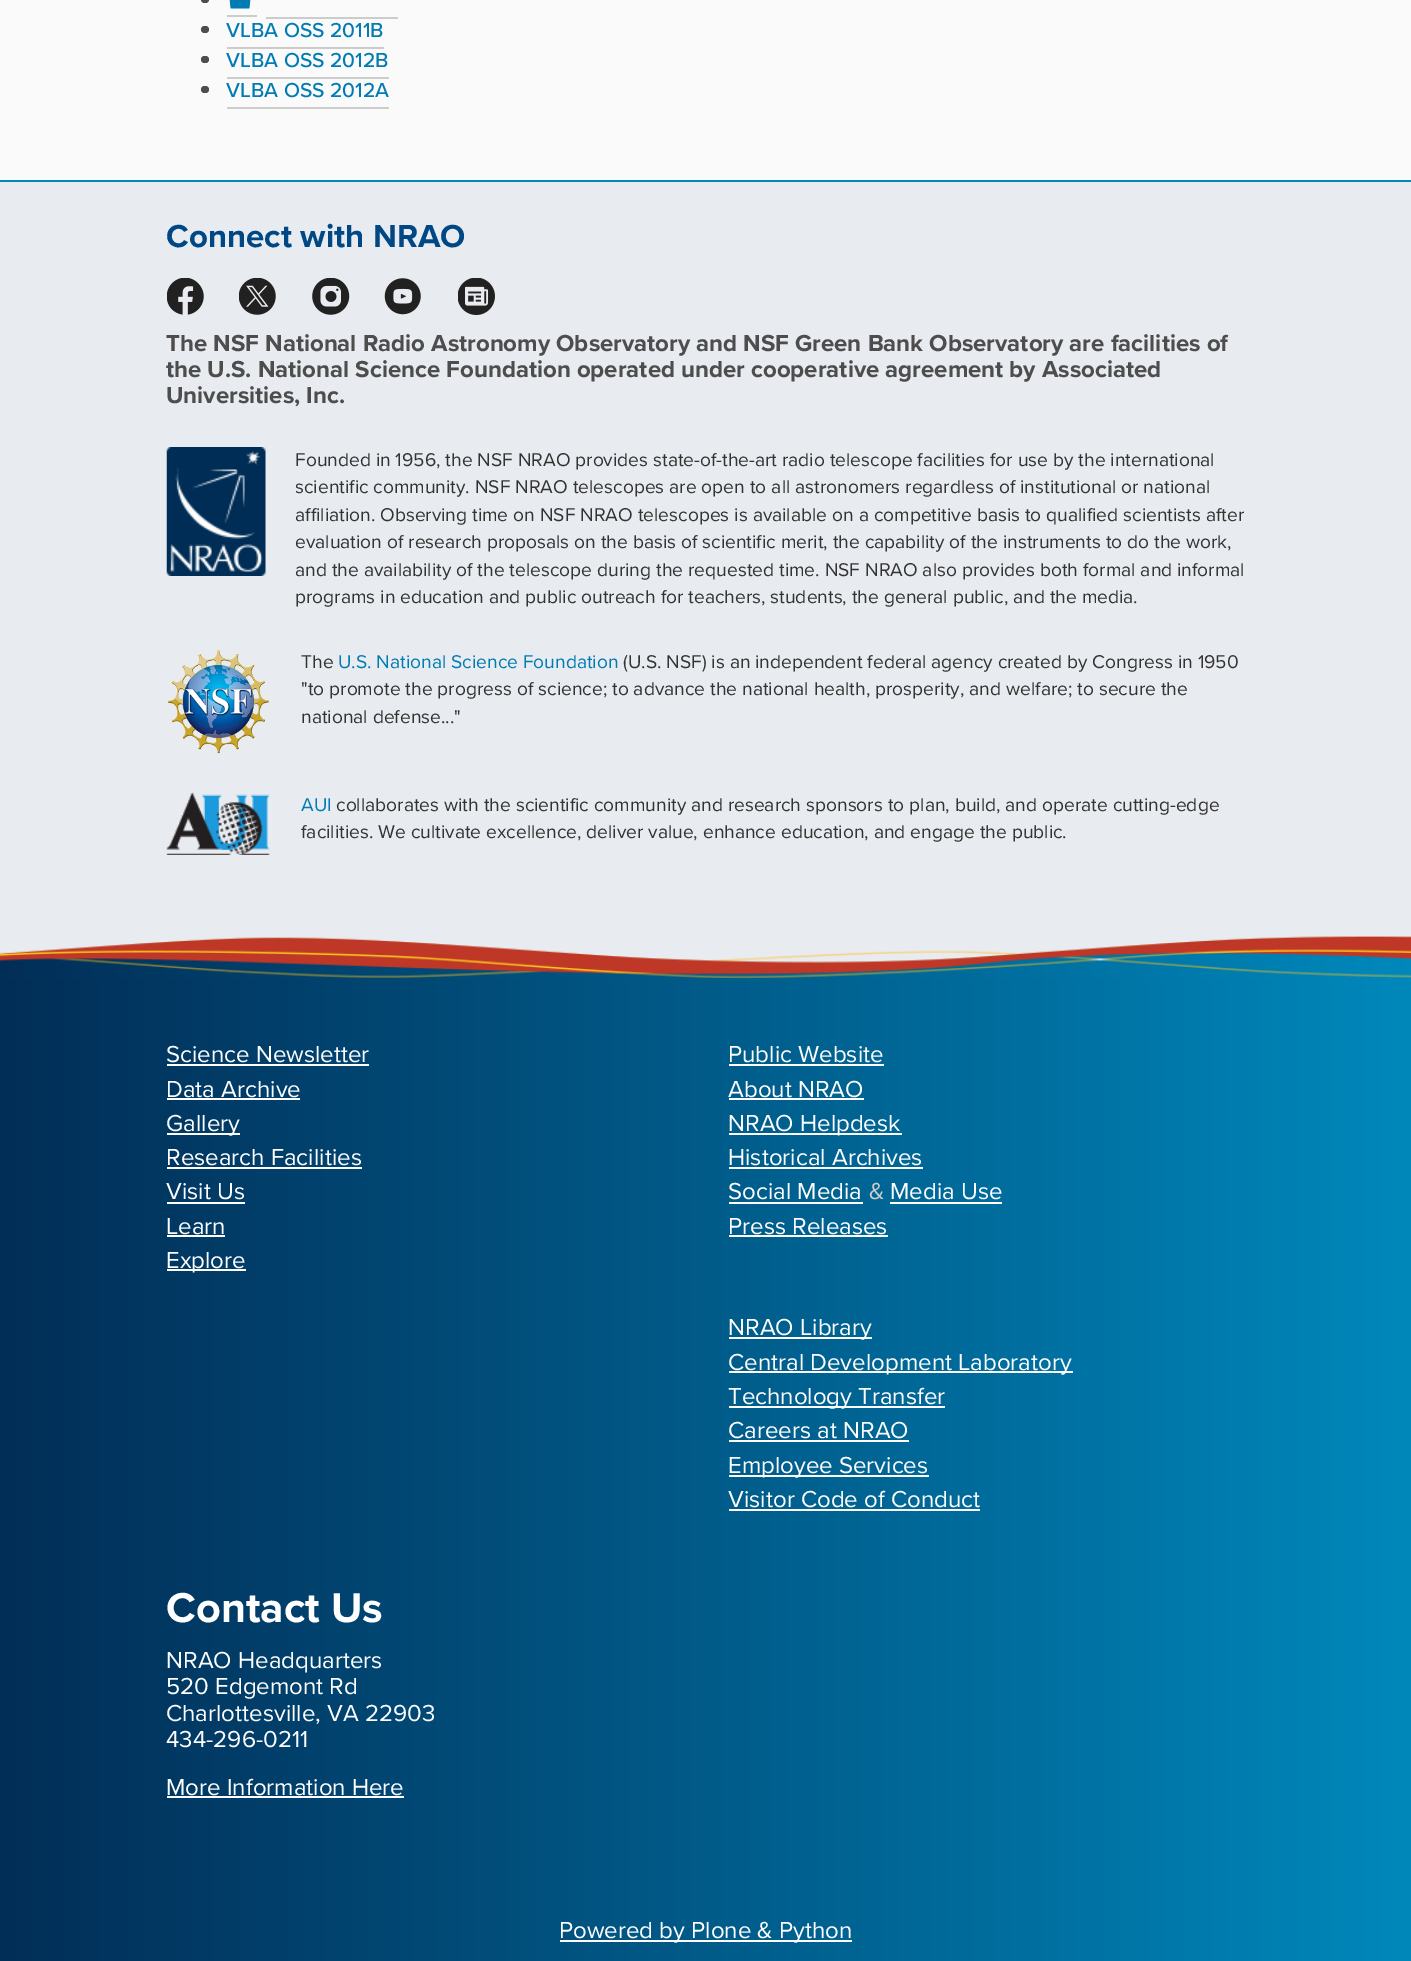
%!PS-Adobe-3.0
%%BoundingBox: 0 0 1411 1961
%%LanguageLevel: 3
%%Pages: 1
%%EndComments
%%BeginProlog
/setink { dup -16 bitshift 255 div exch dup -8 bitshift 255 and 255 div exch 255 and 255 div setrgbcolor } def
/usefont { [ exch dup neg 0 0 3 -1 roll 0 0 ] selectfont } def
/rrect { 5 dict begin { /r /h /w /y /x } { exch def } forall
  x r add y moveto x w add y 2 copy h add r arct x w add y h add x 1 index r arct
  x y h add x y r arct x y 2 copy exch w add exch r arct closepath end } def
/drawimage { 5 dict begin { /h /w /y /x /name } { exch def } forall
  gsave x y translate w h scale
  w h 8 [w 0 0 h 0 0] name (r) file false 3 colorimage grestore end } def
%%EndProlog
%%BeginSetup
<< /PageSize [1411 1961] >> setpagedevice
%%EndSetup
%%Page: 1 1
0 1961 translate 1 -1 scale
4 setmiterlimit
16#FAFAFA setink
0 0 1411 1961 rectfill
16#4D4D4D setink
201 -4 8 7 3.5 rrect fill
16#CCCCCC setink
227 15 30 2 rectfill
266 17 132 2 rectfill
(img1.raw) 229 0 22 9 drawimage
16#4D4D4D setink
201 26 8 7 3.5 rrect fill
/ProximaNova-Medium 21 usefont
16#007BB3 setink
226 37 moveto (VLBA OSS 2011B) show
16#CCCCCC setink
227 47 157 2 rectfill
16#4D4D4D setink
201 56 8 7 3.5 rrect fill
16#007BB3 setink
226 67 moveto (VLBA OSS 2012B) show
16#CCCCCC setink
227 77 162 2 rectfill
16#4D4D4D setink
201 86 8 7 3.5 rrect fill
16#007BB3 setink
226 97 moveto (VLBA OSS 2012A) show
[
    [227 107 162 2 16#CCCCCC]
    [0 182 1411 741 16#E8EBEF]
    [0 180 1411 2 16#0088BB]
] { aload pop setink rectfill } forall
/ProximaNova-Bold 33 usefont
16#004785 setink
166 247 moveto (Connect with NRAO) show
(img2.raw) 167 278 37 37 drawimage
(img3.raw) 239 278 37 37 drawimage
(img4.raw) 312 278 38 37 drawimage
(img5.raw) 384 278 37 37 drawimage
(img6.raw) 458 278 37 37 drawimage
/ProximaNova-Bold 24 usefont
16#4D4D4D setink
[
    [(The NSF National Radio Astronomy Observatory and NSF Green Bank Observatory are facilities of) 166 351]
    [(the U.S. National Science Foundation operated under cooperative agreement by Associated) 166 377]
    [(Universities, Inc.) 166 403]
] { aload pop moveto show } forall
(img7.raw) 166 447 100 129 drawimage
/ProximaNova-Regular 19.2 usefont
16#333333 setink
295 466 moveto (Founded in 1956, the NSF NRAO provides state-of-the-art radio telescope facilities for use by the international) show
gsave
296 447 951 164 rectclip
[
    [(scientific community. NSF NRAO telescopes are open to all astronomers regardless of institutional or national) 295 493]
    [(affiliation. Observing time on NSF NRAO telescopes is available on a competitive basis to qualified scientists after) 295 521]
    [(evaluation of research proposals on the basis of scientific merit, the capability of the instruments to do the work,) 295 548]
    [(and the availability of the telescope during the requested time. NSF NRAO also provides both formal and informal) 295 576]
] { aload pop moveto show } forall
grestore
295 603 moveto (programs in education and public outreach for teachers, students, the general public, and the media.) show
(img8.raw) 167 650 102 104 drawimage
301 668 moveto (The) show
16#007BB3 setink
338 668 moveto (U.S. National Science Foundation) show
16#333333 setink
[
    [(\(U.S. NSF\) is an independent federal agency created by Congress in 1950) 623 668]
    [("to promote the progress of science; to advance the national health, prosperity, and welfare; to secure the) 301 695]
    [(national defense...") 301 723]
] { aload pop moveto show } forall
(img9.raw) 166 792 104 63 drawimage
16#007BB3 setink
301 811 moveto (AUI) show
16#333333 setink
336 811 moveto (collaborates with the scientific community and research sponsors to plan, build, and operate cutting-edge) show
301 838 moveto (facilities. We cultivate excellence, deliver value, enhance education, and engage the public.) show
gsave 0 952 moveto 1411 952 lineto 1411 1961 lineto 0 1961 lineto closepath clip newpath
<< /ShadingType 2 /ColorSpace /DeviceRGB /Coords [0 1514 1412 1514] /Extend [true true] /Function << /FunctionType 2 /Domain [0 1] /C0 [0.004 0.18 0.341] /C1 [0 0.533 0.733] /N 1 >> >> shfill grestore
(img10.raw) 0 923 1411 56 drawimage
/ProximaNova-Regular 24 usefont
16#FFFFFF setink
166 1062 moveto (Science Newsletter) show
167 1064 202 2 rectfill
166 1097 moveto (Data Archive) show
167 1098 133 2 rectfill
167 1133 73 2 rectfill
166 1131 moveto (Gallery) show
166 1165 moveto (Research Facilities) show
167 1167 195 2 rectfill
166 1199 moveto (Visit Us) show
167 1202 78 2 rectfill
166 1234 moveto (Learn) show
167 1235 58 2 rectfill
167 1269 79 2 rectfill
166 1268 moveto (Explore) show
728 1062 moveto (Public Website) show
729 1064 155 2 rectfill
728 1097 moveto (About NRAO) show
729 1098 135 2 rectfill
729 1133 173 2 rectfill
728 1131 moveto (NRAO Helpdesk) show
728 1165 moveto (Historical Archives) show
729 1167 194 2 rectfill
728 1199 moveto (Social Media) show
729 1202 134 2 rectfill
16#CCCCCC setink
869 1199 moveto (&) show
16#FFFFFF setink
890 1199 moveto (Media Use) show
890 1202 112 2 rectfill
728 1234 moveto (Press Releases) show
729 1235 159 2 rectfill
729 1337 143 2 rectfill
728 1335 moveto (NRAO Library) show
729 1371 344 2 rectfill
728 1370 moveto (Central Development Laboratory) show
729 1406 216 2 rectfill
728 1404 moveto (Technology Transfer) show
728 1438 moveto (Careers at NRAO) show
729 1440 180 2 rectfill
729 1475 200 2 rectfill
728 1473 moveto (Employee Services) show
728 1507 moveto (Visitor Code of Conduct) show
729 1509 251 2 rectfill
/ProximaNova-Bold 43.25 usefont
166 1622 moveto (Contact Us) show
/ProximaNova-Regular 24 usefont
[
    [(NRAO Headquarters) 166 1668]
    [(520 Edgemont Rd) 166 1694]
    [(Charlottesville, VA 22903) 166 1721]
    [(434-296-0211) 166 1747]
    [(More Information Here) 166 1795]
] { aload pop moveto show } forall
167 1796 237 2 rectfill
560 1940 292 2 rectfill
559 1938 moveto (Powered by Plone & Python) show
showpage
%%EOF
